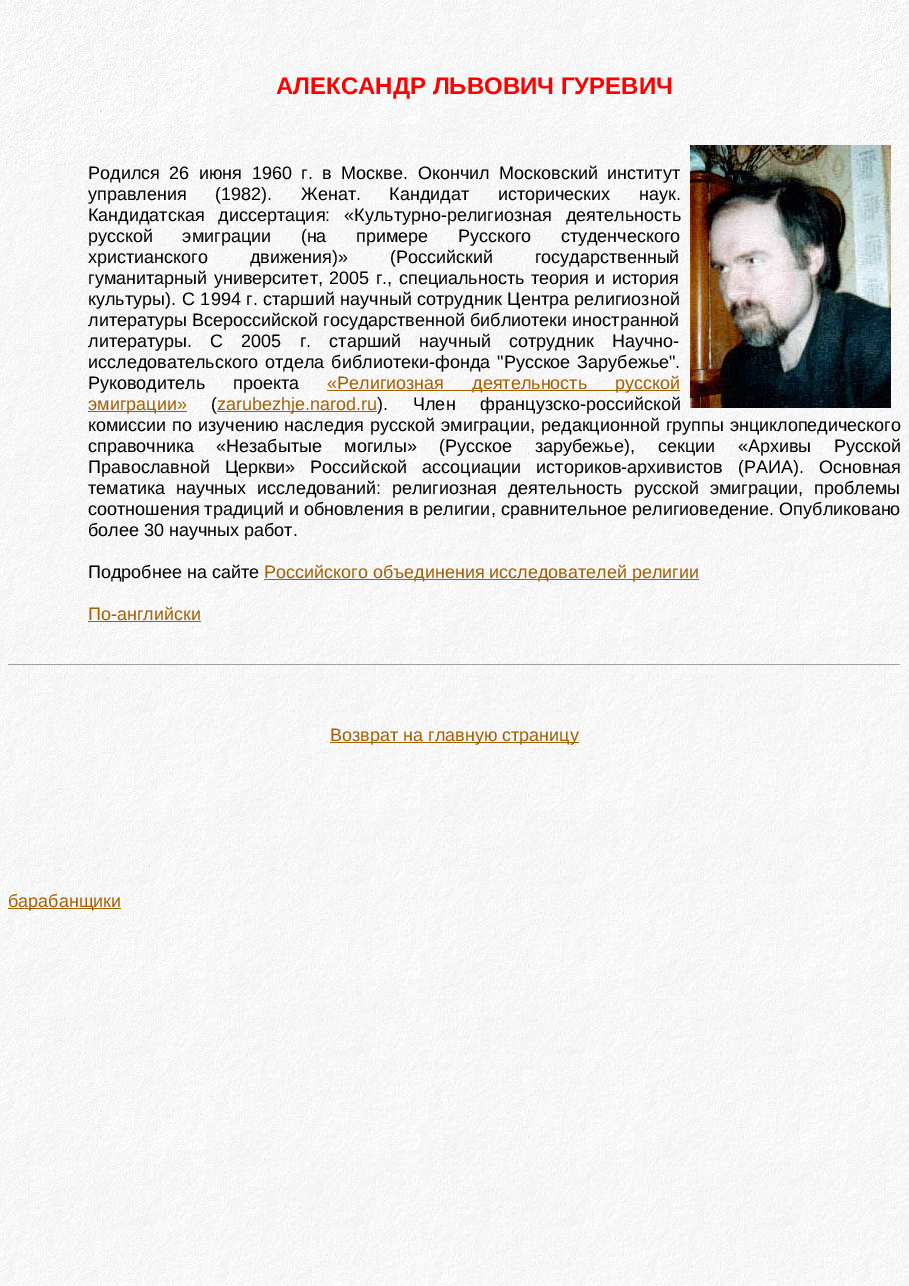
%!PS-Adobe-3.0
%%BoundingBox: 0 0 909 1286
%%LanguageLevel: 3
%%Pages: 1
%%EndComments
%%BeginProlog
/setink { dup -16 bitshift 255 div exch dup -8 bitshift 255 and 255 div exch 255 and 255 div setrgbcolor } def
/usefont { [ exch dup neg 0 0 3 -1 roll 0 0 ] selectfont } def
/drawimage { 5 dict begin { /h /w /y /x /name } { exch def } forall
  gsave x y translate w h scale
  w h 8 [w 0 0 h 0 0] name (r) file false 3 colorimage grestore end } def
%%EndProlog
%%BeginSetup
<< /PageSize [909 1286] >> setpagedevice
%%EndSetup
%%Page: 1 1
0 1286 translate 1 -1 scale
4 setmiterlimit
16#FFFFFF setink
0 0 909 1286 rectfill
(img1.raw) 0 0 909 1286 drawimage
/LiberationSans-Bold 24 usefont
16#FF0000 setink
276 94 moveto (АЛЕКСАНДР ЛЬВОВИЧ ГУРЕВИЧ) show
(img2.raw) 690 145 201 263 drawimage
/LiberationSans-Regular 18 usefont
16#000000 setink
88 179 moveto 4.5 0 32 (Родился 26 июня 1960 г. в Москве.) widthshow
418 179 moveto 4.5 0 32 (Окончил Московский институт) widthshow
88 200 moveto 23.5 0 32 (управления \(1982\).) widthshow
301 200 moveto 23.5 0 32 (Женат. Кандидат исторических наук.) widthshow
88 221 moveto 9 0 32 (Кандидатская диссертация: «Культурно-религиозная деятельность) widthshow
88 242 moveto 24.5 0 32 (русской эмиграции \(на примере Русского студенческого) widthshow
88 263 moveto 37 0 32 (христианского движения\)» \(Российский государственный) widthshow
88 284 moveto 1.5 0 32 (гуманитарный университет, 2005 г., специальность теория и история) widthshow
88 305 moveto (культуры\).) show
182 305 moveto 0.5 0 32 (С 1994 г. старший научный сотрудник Центра религиозной) widthshow
88 326 moveto (литературы Всероссийской государственной библиотеки иностранной) show
88 347 moveto (литературы.) show
210 347 moveto 13.25 0 32 (С 2005 г. старший научный сотрудник Научно-) widthshow
88 368 moveto 2 0 32 (исследовательского отдела библиотеки-фонда "Русское Зарубежье".) widthshow
88 389 moveto 23 0 32 (Руководитель проекта) widthshow
16#A36002 setink
327 390 353 1 rectfill
327 389 moveto 23 0 32 («Религиозная деятельность русской) widthshow
88 411 99 1 rectfill
88 410 moveto (эмиграции») show
16#000000 setink
211 410 moveto (\() show
16#A36002 setink
217 411 160 1 rectfill
217 410 moveto (zarubezhje.narod.ru) show
16#000000 setink
377 410 moveto (\).) show
413 410 moveto 20 0 32 (Член французско-российской) widthshow
88 431 moveto 1 0 32 (комиссии по изучению наследия русской эмиграции,) widthshow
541 431 moveto 1 0 32 (редакционной группы энциклопедического) widthshow
88 452 moveto 17.5 0 32 (справочника «Незабытые могилы» \(Русское зарубежье\),) widthshow
658 452 moveto 17.5 0 32 (секции «Архивы Русской) widthshow
88 473 moveto 10 0 32 (Православной Церкви» Российской ассоциации историков-архивистов \(РАИА\).) widthshow
819 473 moveto (Основная) show
88 494 moveto 6 0 32 (тематика научных исследований: религиозная деятельность русской эмиграции, проблемы) widthshow
[
    [(соотношения традиций и обновления в религии, сравнительное религиоведение. Опубликовано) 88 515]
    [(более 30 научных работ.) 88 536]
    [(Подробнее на сайте) 88 578]
] { aload pop moveto show } forall
16#A36002 setink
264 579 435 1 rectfill
264 578 moveto (Российского объединения исследователей религии) show
88 620 moveto (По-английски) show
[
    [88 621 113 1 16#A36002]
    [8 664 893 1 16#9F9F9F]
    [900 664 1 1 16#EEEEEE]
    [330 742 249 1 16#A36002]
] { aload pop setink rectfill } forall
330 741 moveto (Возврат на главную страницу) show
8 908 113 1 rectfill
8 907 moveto (барабанщики) show
showpage
%%EOF
